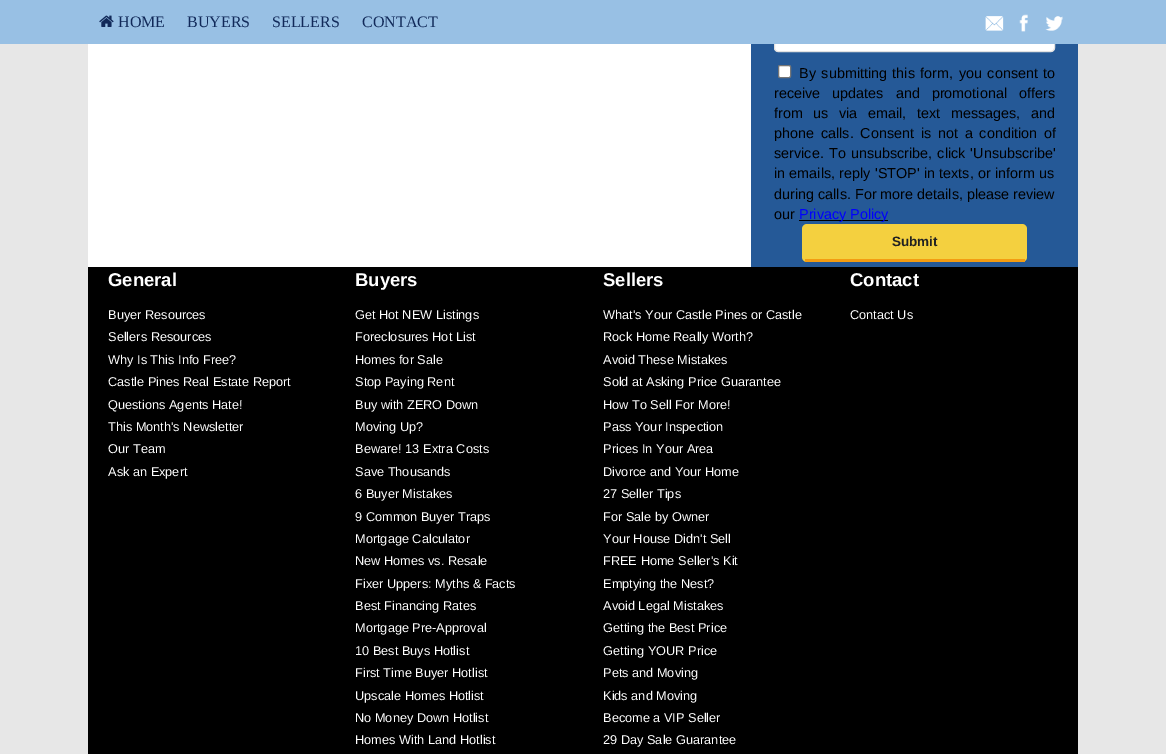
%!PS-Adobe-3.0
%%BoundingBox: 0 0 1166 754
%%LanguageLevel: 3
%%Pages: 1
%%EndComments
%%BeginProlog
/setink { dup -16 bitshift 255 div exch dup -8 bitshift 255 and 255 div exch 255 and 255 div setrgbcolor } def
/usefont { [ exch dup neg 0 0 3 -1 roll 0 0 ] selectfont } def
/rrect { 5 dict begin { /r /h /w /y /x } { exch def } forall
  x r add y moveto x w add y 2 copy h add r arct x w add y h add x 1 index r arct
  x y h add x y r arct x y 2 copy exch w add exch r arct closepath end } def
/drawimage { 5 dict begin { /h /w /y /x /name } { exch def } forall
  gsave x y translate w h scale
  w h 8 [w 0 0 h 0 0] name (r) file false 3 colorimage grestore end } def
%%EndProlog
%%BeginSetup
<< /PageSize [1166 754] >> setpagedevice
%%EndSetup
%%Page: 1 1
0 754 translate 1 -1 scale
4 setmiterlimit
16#E7E7E7 setink
0 0 1166 754 rectfill
16#255997 setink
751 44 327 223 rectfill
16#FFFFFF setink
774.5 19.5 280 32 3.5 rrect gsave fill grestore
16#E1E1E1 setink
stroke
16#98C0E4 setink
0 0 1166 44 rectfill
(img1.raw) 99 15 15 12 drawimage
/LiberationSerif-Regular 16 usefont
16#112959 setink
[
    [(HOME) 118 27]
    [(BUYERS) 187 27]
    [(SELLERS) 272 27]
    [(CONTACT) 362 27]
] { aload pop moveto show } forall
(img2.raw) 985 16 19 15 drawimage
(img3.raw) 1019 14 9 18 drawimage
(img4.raw) 1045 16 18 15 drawimage
16#FFFFFF setink
88 44 663 223 rectfill
778.5 65.5 12 12 1.5 rrect gsave fill grestore
16#767676 setink
stroke
/LiberationSans-Regular 14.4 usefont
16#000000 setink
799 78 moveto 1.5 0 32 (By submitting this form, you consent to) widthshow
774 98 moveto 8 0 32 (receive updates and promotional offers) widthshow
774 118 moveto 6.5 0 32 (from us via email, text messages, and) widthshow
774 138 moveto 2.75 0 32 (phone calls. Consent is not a condition of) widthshow
774 158 moveto (service.) show
829 158 moveto 1 0 32 (To unsubscribe, click 'Unsubscribe') widthshow
774 178 moveto 0.25 0 32 (in emails, reply 'STOP' in texts, or inform us) widthshow
774 199 moveto (during calls. For more details, please review) show
774 219 moveto (our) show
799 220 89 1 rectfill
16#0000FF setink
799 219 moveto (Privacy Policy) show
16#F4D03F setink
802 224 225 38 5 rrect fill
16#F39C12 setink
805 259 220 3 rectfill
/LiberationSans-Bold 13.5 usefont
16#222222 setink
892 246 moveto (Submit) show
16#000000 setink
88 267 990 487 rectfill
/LiberationSans-Bold 18.5 usefont
16#FFFFFF setink
108 286 moveto (General) show
/LiberationSans-Regular 12.75 usefont
[
    [(Buyer Resources) 108 319]
    [(Sellers Resources) 108 341]
    [(Why Is This Info Free?) 108 364]
    [(Castle Pines Real Estate Report) 108 386]
    [(Questions Agents Hate!) 108 409]
    [(This Month's Newsletter) 108 431]
    [(Our Team) 108 453]
    [(Ask an Expert) 108 476]
] { aload pop moveto show } forall
/LiberationSans-Bold 18.5 usefont
355 286 moveto (Buyers) show
/LiberationSans-Regular 12.75 usefont
[
    [(Get Hot NEW Listings) 355 319]
    [(Foreclosures Hot List) 355 341]
    [(Homes for Sale) 355 364]
    [(Stop Paying Rent) 355 386]
    [(Buy with ZERO Down) 355 409]
    [(Moving Up?) 355 431]
    [(Beware! 13 Extra Costs) 355 453]
    [(Save Thousands) 355 476]
    [(6 Buyer Mistakes) 355 498]
    [(9 Common Buyer Traps) 355 521]
    [(Mortgage Calculator) 355 543]
    [(New Homes vs. Resale) 355 565]
    [(Fixer Uppers: Myths & Facts) 355 588]
    [(Best Financing Rates) 355 610]
    [(Mortgage Pre-Approval) 355 632]
    [(10 Best Buys Hotlist) 355 655]
    [(First Time Buyer Hotlist) 355 677]
    [(Upscale Homes Hotlist) 355 700]
    [(No Money Down Hotlist) 355 722]
    [(Homes With Land Hotlist) 355 744]
] { aload pop moveto show } forall
/LiberationSans-Bold 18.5 usefont
603 286 moveto (Sellers) show
/LiberationSans-Regular 12.75 usefont
[
    [(What's Your Castle Pines or Castle) 603 319]
    [(Rock Home Really Worth?) 603 341]
    [(Avoid These Mistakes) 603 364]
    [(Sold at Asking Price Guarantee) 603 386]
    [(How To Sell For More!) 603 409]
    [(Pass Your Inspection) 603 431]
    [(Prices In Your Area) 603 453]
    [(Divorce and Your Home) 603 476]
    [(27 Seller Tips) 603 498]
    [(For Sale by Owner) 603 521]
    [(Your House Didn't Sell) 603 543]
    [(FREE Home Seller's Kit) 603 565]
    [(Emptying the Nest?) 603 588]
    [(Avoid Legal Mistakes) 603 610]
    [(Getting the Best Price) 603 632]
    [(Getting YOUR Price) 603 655]
    [(Pets and Moving) 603 677]
    [(Kids and Moving) 603 700]
    [(Become a VIP Seller) 603 722]
    [(29 Day Sale Guarantee) 603 744]
] { aload pop moveto show } forall
/LiberationSans-Bold 18.5 usefont
850 286 moveto (Contact) show
/LiberationSans-Regular 12.75 usefont
850 319 moveto (Contact Us) show
showpage
%%EOF
